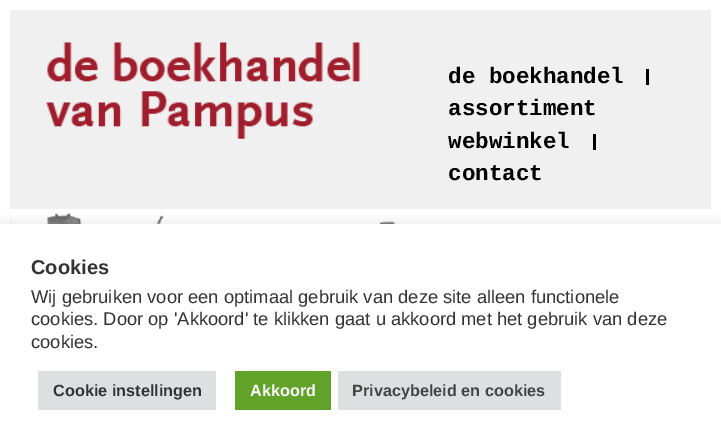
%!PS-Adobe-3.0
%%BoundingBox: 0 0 721 447
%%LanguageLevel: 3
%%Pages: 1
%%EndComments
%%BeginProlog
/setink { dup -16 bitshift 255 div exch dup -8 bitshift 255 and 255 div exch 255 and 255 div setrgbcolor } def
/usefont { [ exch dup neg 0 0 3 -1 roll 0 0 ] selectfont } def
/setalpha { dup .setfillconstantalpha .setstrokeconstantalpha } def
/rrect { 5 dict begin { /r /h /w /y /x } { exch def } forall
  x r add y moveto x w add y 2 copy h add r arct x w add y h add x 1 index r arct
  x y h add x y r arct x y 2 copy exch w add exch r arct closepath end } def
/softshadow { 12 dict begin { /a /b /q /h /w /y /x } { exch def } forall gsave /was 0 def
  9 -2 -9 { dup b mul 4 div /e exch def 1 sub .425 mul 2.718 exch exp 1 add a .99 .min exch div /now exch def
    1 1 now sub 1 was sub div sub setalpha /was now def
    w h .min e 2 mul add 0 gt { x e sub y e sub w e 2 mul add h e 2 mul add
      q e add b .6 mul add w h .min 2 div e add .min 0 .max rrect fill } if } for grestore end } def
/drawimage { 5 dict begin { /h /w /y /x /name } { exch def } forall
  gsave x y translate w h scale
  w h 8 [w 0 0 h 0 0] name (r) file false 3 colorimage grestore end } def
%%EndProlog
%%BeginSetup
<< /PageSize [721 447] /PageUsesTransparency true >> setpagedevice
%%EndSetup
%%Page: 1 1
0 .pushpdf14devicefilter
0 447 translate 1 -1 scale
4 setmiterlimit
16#FFFFFF setink
0 0 721 447 rectfill
16#F0F0F0 setink
10 10 701 199 rectfill
(img1.raw) 46 42 315 97 drawimage
/LiberationMono-Bold 22.5 usefont
16#000000 setink
448 83 moveto (de boekhandel) show
646 69 3 16 rectfill
448 115 moveto (assortiment) show
448 148 moveto (webwinkel) show
593 134 3 16 rectfill
448 180 moveto (contact) show
(img2.raw) 10 209 702 15 drawimage
16#ACABAB setink
0 223 721 223 0 6 0.3 softshadow
16#FFFFFF setink
0 224 721 223 rectfill
/LiberationSans-Bold 20 usefont
16#333333 setink
31 274 moveto (Cookies) show
/LiberationSans-Regular 18.35 usefont
[
    [(Wij gebruiken voor een optimaal gebruik van deze site alleen functionele) 31 303]
    [(cookies. Door op 'Akkoord' te klikken gaat u akkoord met het gebruik van deze) 31 325]
    [(cookies.) 31 348]
] { aload pop moveto show } forall
16#DEDFE0 setink
38 371 178 39 rectfill
/LiberationSans-Bold 16.25 usefont
16#333333 setink
53 396 moveto (Cookie instellingen) show
16#61A229 setink
235 371 96 39 rectfill
16#FFFFFF setink
250 396 moveto (Akkoord) show
16#DEDFE0 setink
338 371 223 39 rectfill
16#444444 setink
352 396 moveto (Privacybeleid en cookies) show
.poppdf14devicefilter showpage
%%EOF
